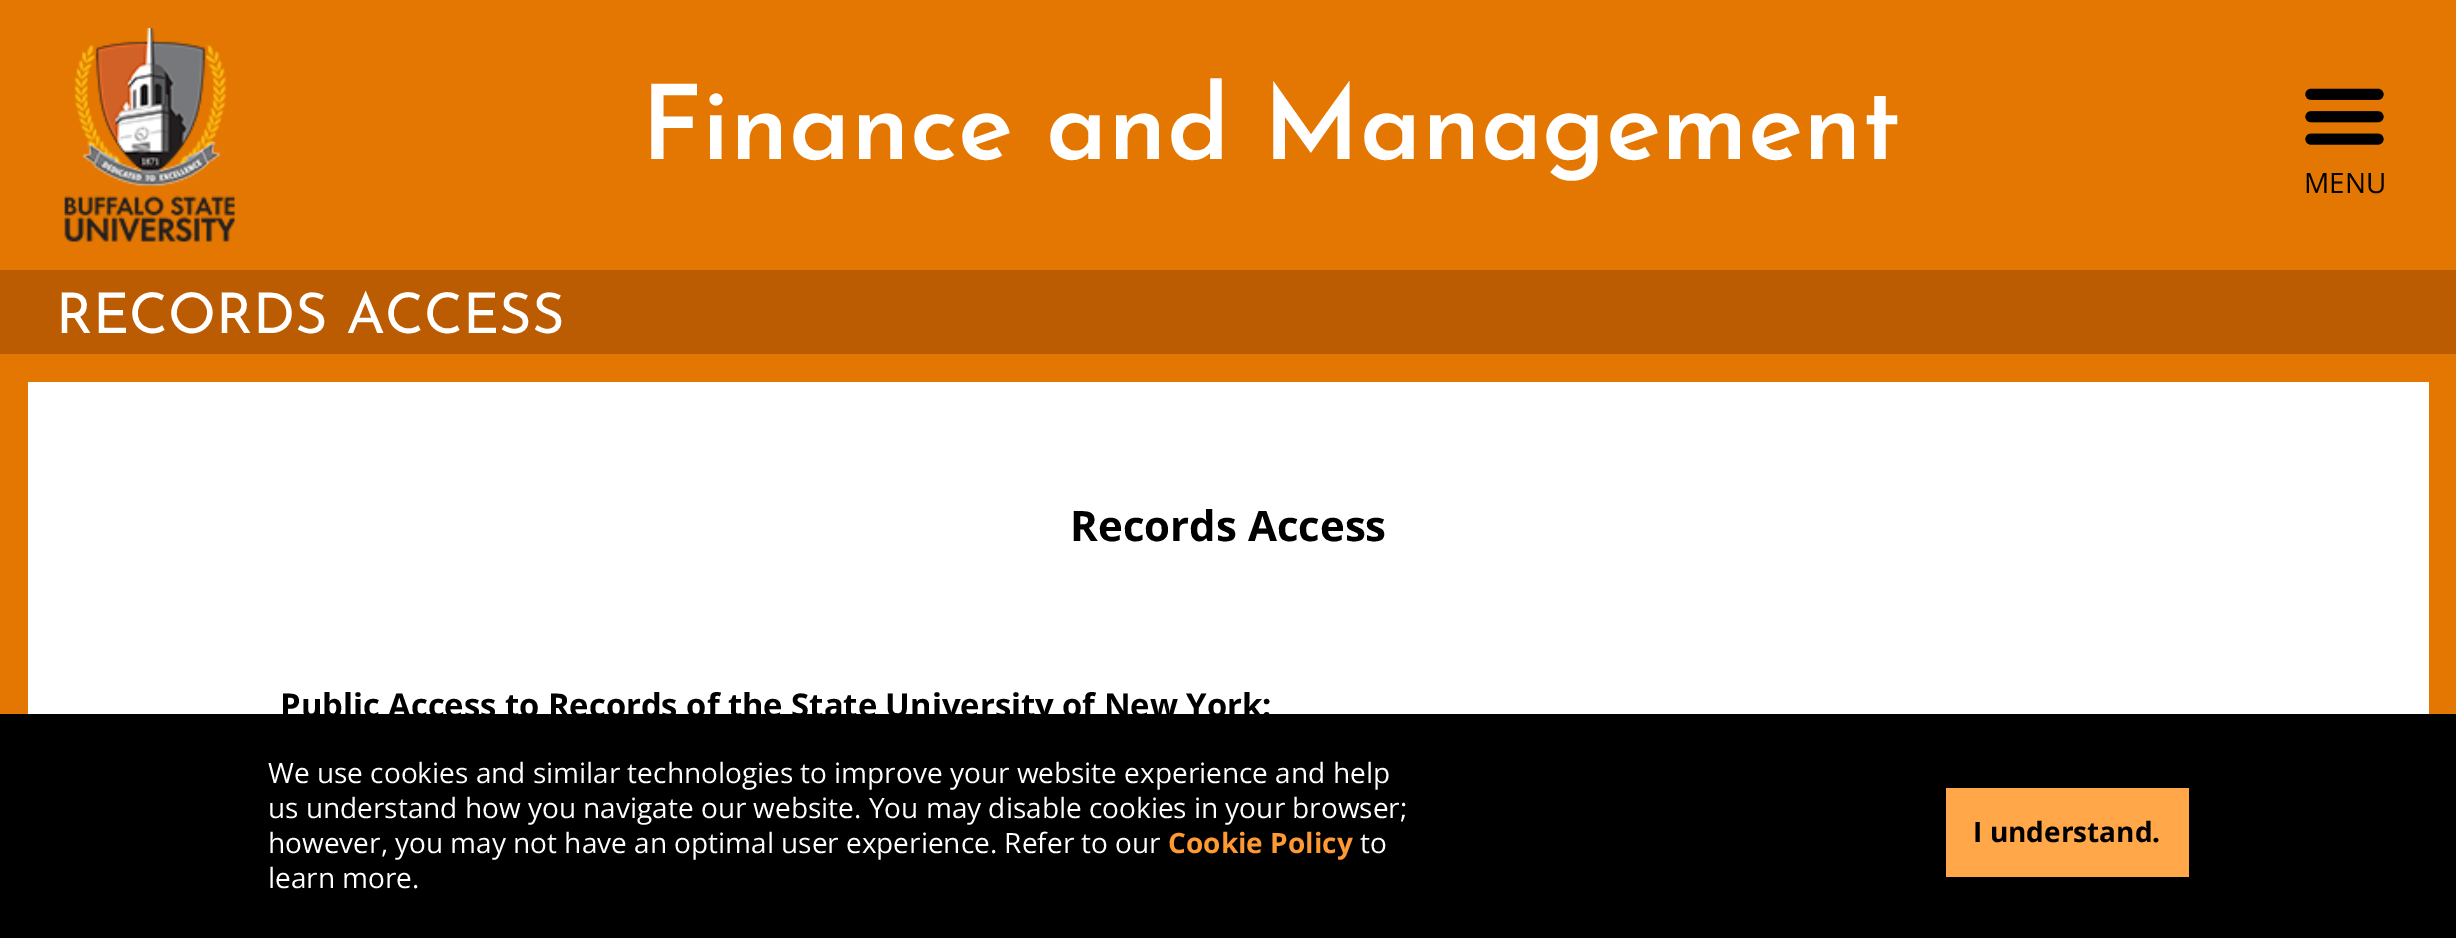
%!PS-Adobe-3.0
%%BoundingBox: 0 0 2456 938
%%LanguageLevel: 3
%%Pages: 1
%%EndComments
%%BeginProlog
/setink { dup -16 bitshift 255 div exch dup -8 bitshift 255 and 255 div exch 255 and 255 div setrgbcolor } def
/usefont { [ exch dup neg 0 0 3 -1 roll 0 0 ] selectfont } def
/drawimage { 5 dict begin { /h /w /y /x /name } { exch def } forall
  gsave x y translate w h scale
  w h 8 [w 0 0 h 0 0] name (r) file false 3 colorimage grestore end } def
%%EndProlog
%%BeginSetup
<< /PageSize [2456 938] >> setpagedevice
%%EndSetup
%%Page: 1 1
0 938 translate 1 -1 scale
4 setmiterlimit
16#E37701 setink
0 0 2456 938 rectfill
(img1.raw) 64 28 171 214 drawimage
/JosefinSans-SemiBold 103.6 usefont
16#FFFFFF setink
641 159 moveto (Finance and Management) show
(img2.raw) 2305 88 79 57 drawimage
/OpenSans-Regular 28 usefont
16#000000 setink
2304 193 moveto (MENU) show
16#BB5B02 setink
0 270 2456 84 rectfill
/JosefinSans-Regular 56 usefont
16#FFFFFF setink
56 333 moveto (RECORDS ACCESS) show
28 382 2401 332 rectfill
/OpenSans-Bold 42 usefont
16#000000 setink
1070 541 moveto (Records Access) show
/OpenSans-Bold 32.75 usefont
280 717 moveto (Public Access to Records of the State University of New York:) show
0 714 2456 224 rectfill
/OpenSans-Regular 28 usefont
16#FFFFFF setink
[
    [(We use cookies and similar technologies to improve your website experience and help) 268 783]
    [(us understand how you navigate our website. You may disable cookies in your browser;) 268 818]
    [(however, you may not have an optimal user experience. Refer to our) 268 853]
] { aload pop moveto show } forall
/OpenSans-Bold 28 usefont
16#FF9933 setink
1168 853 moveto (Cookie Policy) show
/OpenSans-Regular 28 usefont
16#FFFFFF setink
1360 853 moveto (to) show
268 888 moveto (learn more.) show
16#FFA749 setink
1946 788 243 89 rectfill
/OpenSans-Bold 28 usefont
16#000000 setink
1973 842 moveto (I understand.) show
showpage
%%EOF
